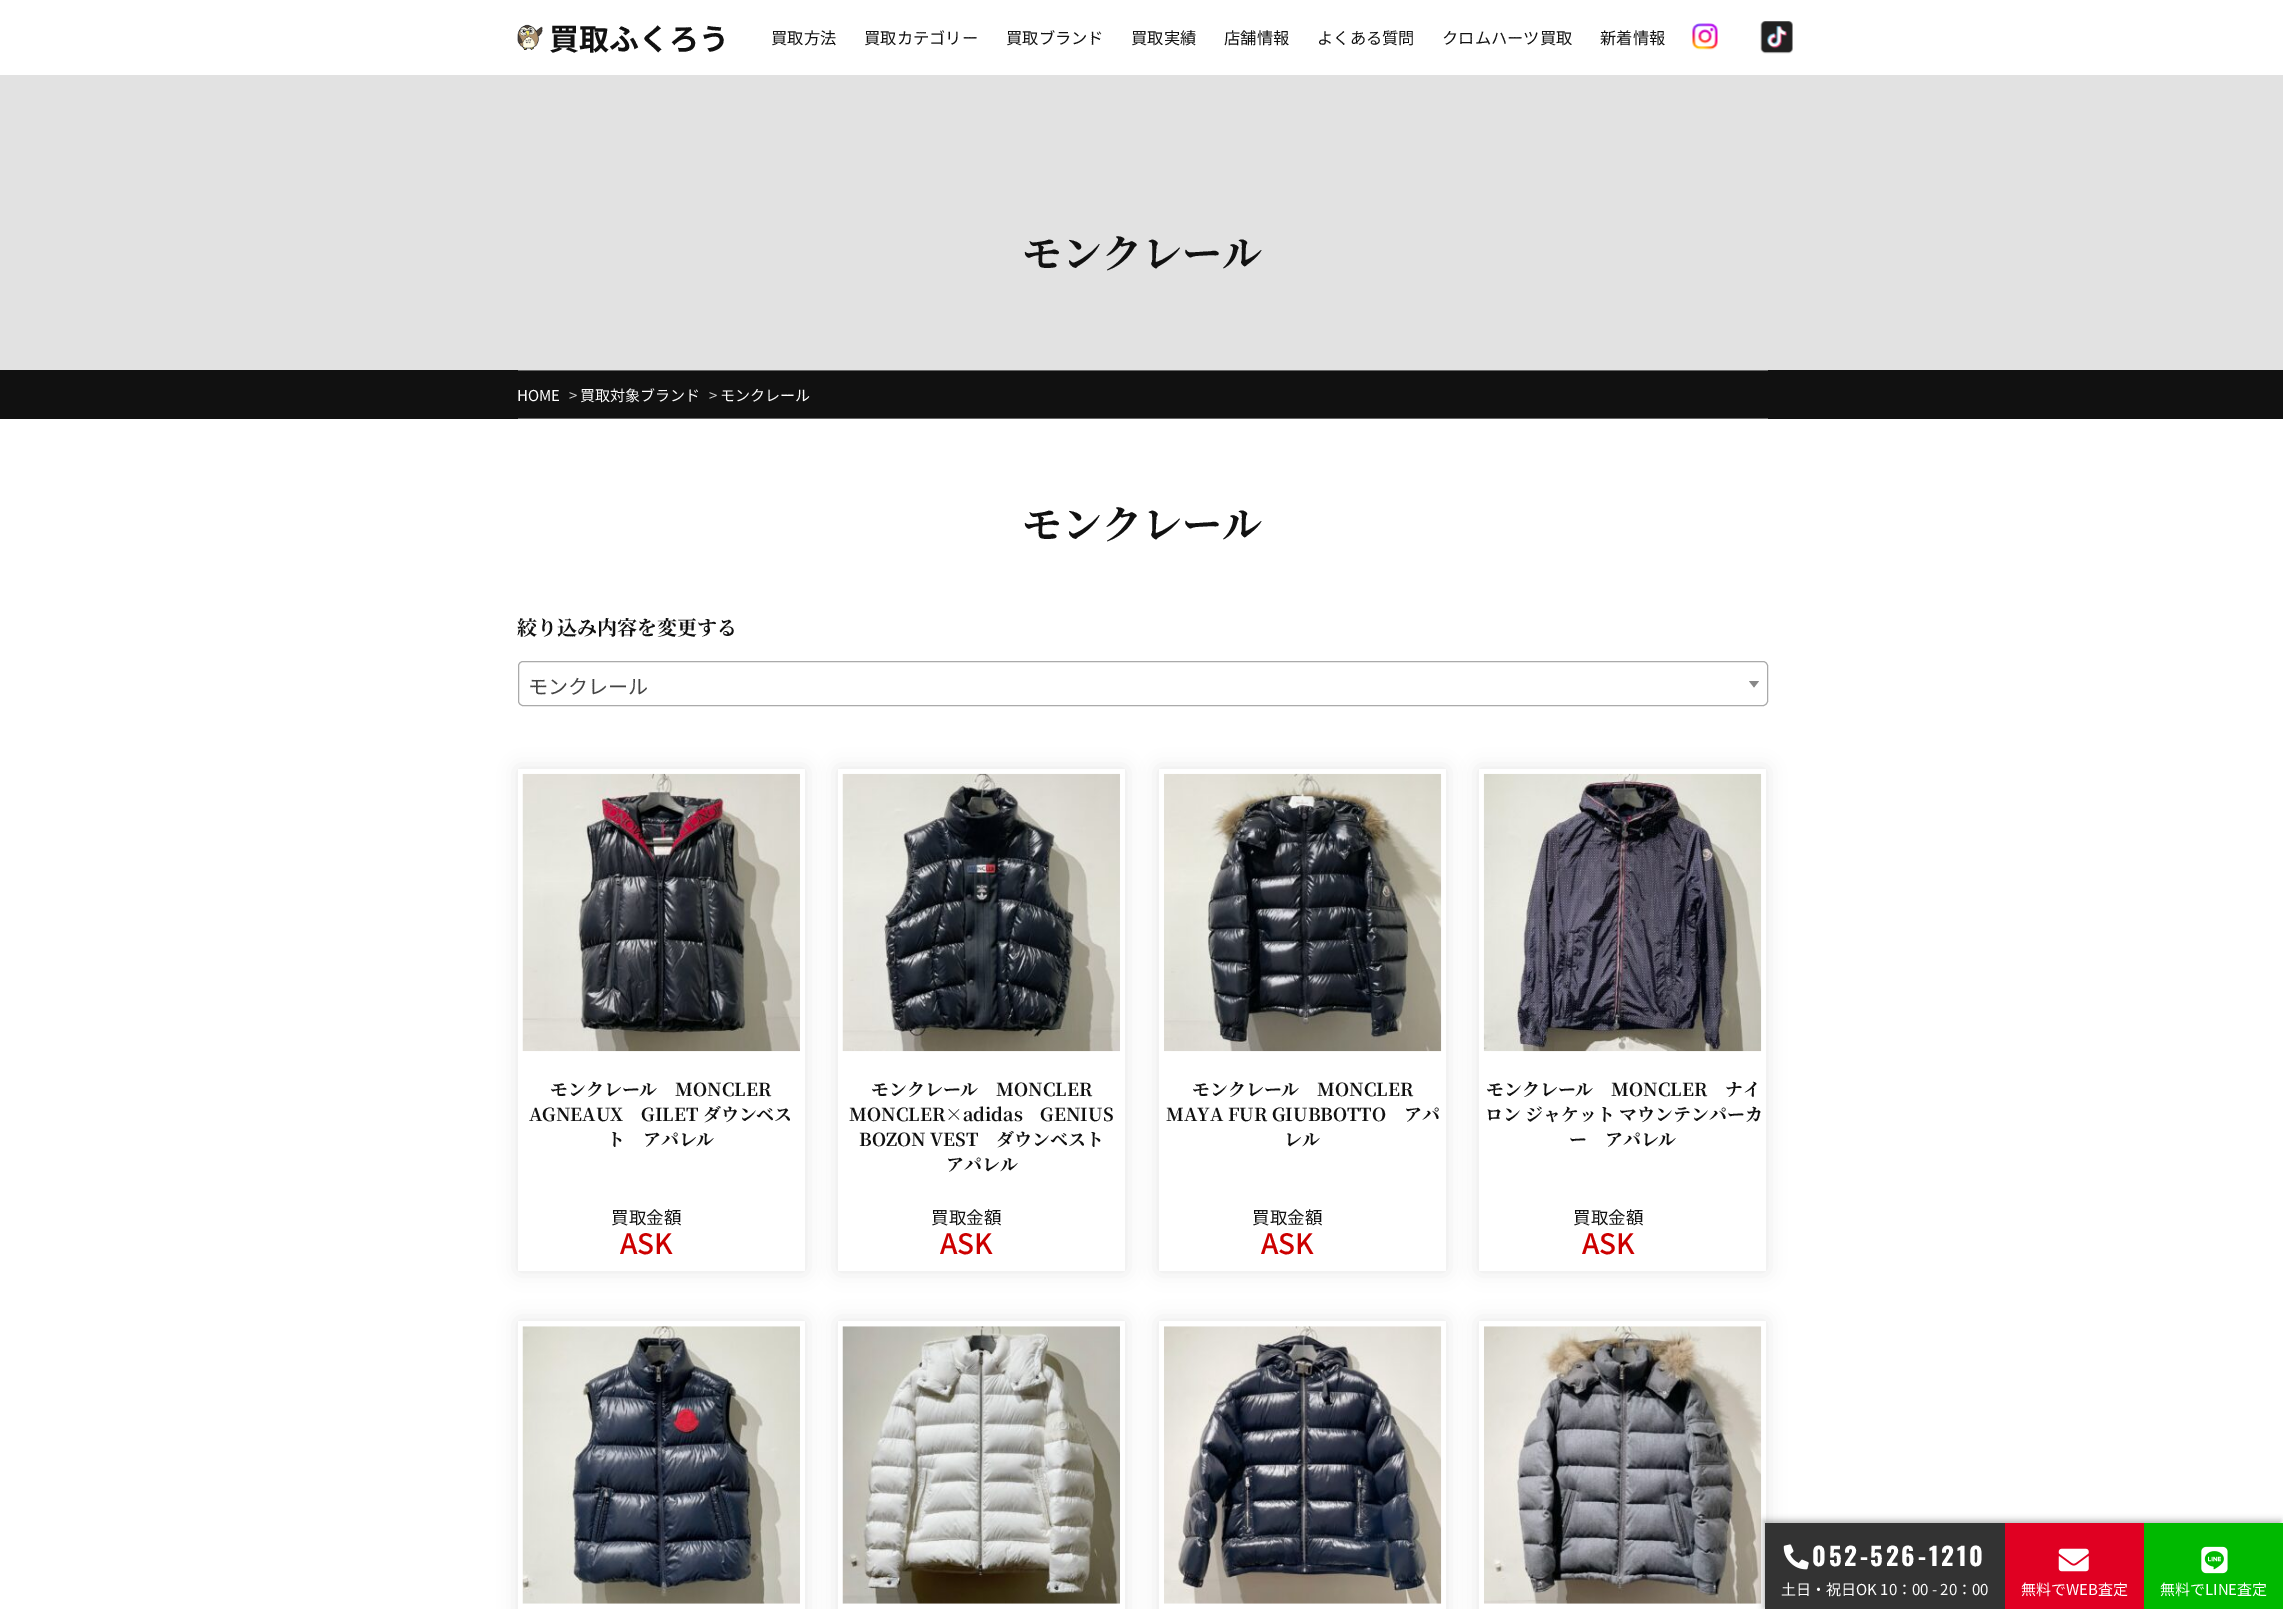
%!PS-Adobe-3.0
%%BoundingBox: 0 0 2283 1609
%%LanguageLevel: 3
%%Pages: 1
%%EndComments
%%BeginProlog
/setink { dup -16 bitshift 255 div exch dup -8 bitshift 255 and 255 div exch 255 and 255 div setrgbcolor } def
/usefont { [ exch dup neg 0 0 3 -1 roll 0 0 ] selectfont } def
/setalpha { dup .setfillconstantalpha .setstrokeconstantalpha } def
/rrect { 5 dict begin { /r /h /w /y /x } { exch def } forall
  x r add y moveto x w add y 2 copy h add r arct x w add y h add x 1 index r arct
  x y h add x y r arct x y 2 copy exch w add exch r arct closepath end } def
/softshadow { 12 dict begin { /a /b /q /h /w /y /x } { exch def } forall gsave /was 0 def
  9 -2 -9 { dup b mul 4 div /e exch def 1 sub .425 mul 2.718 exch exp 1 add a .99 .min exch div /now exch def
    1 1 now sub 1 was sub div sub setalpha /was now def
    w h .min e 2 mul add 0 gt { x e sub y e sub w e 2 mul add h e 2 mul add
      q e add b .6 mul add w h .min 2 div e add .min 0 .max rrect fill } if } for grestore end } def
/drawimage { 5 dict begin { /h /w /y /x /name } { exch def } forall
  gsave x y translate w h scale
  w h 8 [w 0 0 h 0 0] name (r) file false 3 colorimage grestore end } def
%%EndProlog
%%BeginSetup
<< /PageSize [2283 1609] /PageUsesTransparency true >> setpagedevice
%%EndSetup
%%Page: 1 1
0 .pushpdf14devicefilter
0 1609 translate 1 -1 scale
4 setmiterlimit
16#FFFFFF setink
0 0 2283 1609 rectfill
(img1.raw) 517 24 26 26 drawimage
/NotoSansJP-Bold 30 usefont
16#111111 setink
549 50 moveto (買取ふくろう) show
/NotoSansJP-Regular 16.25 usefont
[
    [(買取方法) 771 44]
    [(買取カテゴリー) 864 44]
    [(買取ブランド) 1006 44]
    [(買取実績) 1131 44]
    [(店舗情報) 1224 44]
    [(よくある質問) 1317 44]
    [(クロムハーツ買取) 1442 44]
    [(新着情報) 1600 44]
] { aload pop moveto show } forall
(img2.raw) 1692 23 26 27 drawimage
(img3.raw) 1760 21 33 33 drawimage
16#E2E2E2 setink
0 75 2283 295 rectfill
/NotoSerifJP-Bold 40 usefont
16#111111 setink
1022 268 moveto (モンクレール) show
[
    [0 370 2283 49 16#111111]
    [518 370 1250 1 16#666666]
    [518 418 1250 1 16#666666]
] { aload pop setink rectfill } forall
/NotoSansJP-Regular 15 usefont
16#FFFFFF setink
517 401 moveto (HOME) show
16#CCCCCC setink
569 401 moveto (>) show
16#FFFFFF setink
580 401 moveto (買取対象ブランド) show
16#CCCCCC setink
709 401 moveto (>) show
16#FFFFFF setink
720 401 moveto (モンクレール) show
/NotoSerifJP-Bold 40 usefont
16#111111 setink
1022 539 moveto (モンクレール) show
/NotoSerifJP-Bold 20 usefont
517 635 moveto (絞り込み内容を変更する) show
16#AAAAAA setink
518.5 661.5 1249 44 4.5 rrect stroke
/NotoSansJP-Regular 20 usefont
16#444444 setink
528 694 moveto (モンクレール) show
16#888888 setink
1749 681 moveto 1759 681 lineto 1754 687.5 lineto closepath fill
gsave
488 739 moveto 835 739 lineto 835 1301 lineto 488 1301 lineto closepath 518 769 moveto 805 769 lineto 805 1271 lineto 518 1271 lineto closepath eoclip newpath
16#000000 setink
518 769 287 502 0 9.5 0.1 softshadow
grestore
(img4.raw) 522 773 278 279 drawimage
/NotoSerifJP-Bold 17.9 usefont
16#111111 setink
[
    [(モンクレール　MONCLER) 550 1096]
    [(AGNEAUX　GILET ダウンベス) 529 1121]
    [(ト　アパレル) 607 1146]
] { aload pop moveto show } forall
/NotoSansJP-Regular 17.5 usefont
611 1224 moveto (買取金額) show
/NotoSansJP-Medium 28 usefont
16#CC0000 setink
620 1254 moveto (ASK) show
gsave
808 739 moveto 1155 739 lineto 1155 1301 lineto 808 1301 lineto closepath 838 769 moveto 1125 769 lineto 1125 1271 lineto 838 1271 lineto closepath eoclip newpath
16#000000 setink
838 769 287 502 0 9.5 0.1 softshadow
grestore
(img5.raw) 842 773 278 279 drawimage
/NotoSerifJP-Bold 17.9 usefont
16#111111 setink
[
    [(モンクレール　MONCLER) 871 1096]
    [(MONCLER×adidas　GENIUS) 849 1121]
    [(BOZON VEST　ダウンベスト) 859 1146]
    [(アパレル) 946 1171]
] { aload pop moveto show } forall
/NotoSansJP-Regular 17.5 usefont
931 1224 moveto (買取金額) show
/NotoSansJP-Medium 28 usefont
16#CC0000 setink
940 1254 moveto (ASK) show
gsave
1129 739 moveto 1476 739 lineto 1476 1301 lineto 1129 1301 lineto closepath 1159 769 moveto 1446 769 lineto 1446 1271 lineto 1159 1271 lineto closepath eoclip newpath
16#000000 setink
1159 769 287 502 0 9.5 0.1 softshadow
grestore
(img6.raw) 1164 773 278 279 drawimage
/NotoSerifJP-Bold 17.9 usefont
16#111111 setink
[
    [(モンクレール　MONCLER) 1192 1096]
    [(MAYA FUR GIUBBOTTO　アパ) 1166 1121]
    [(レル) 1284 1146]
] { aload pop moveto show } forall
/NotoSansJP-Regular 17.5 usefont
1252 1224 moveto (買取金額) show
/NotoSansJP-Medium 28 usefont
16#CC0000 setink
1261 1254 moveto (ASK) show
gsave
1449 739 moveto 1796 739 lineto 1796 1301 lineto 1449 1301 lineto closepath 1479 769 moveto 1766 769 lineto 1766 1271 lineto 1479 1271 lineto closepath eoclip newpath
16#000000 setink
1479 769 287 502 0 9.5 0.1 softshadow
grestore
(img7.raw) 1483 773 279 279 drawimage
/NotoSerifJP-Bold 17.9 usefont
16#111111 setink
[
    [(モンクレール　MONCLER　ナイ) 1486 1096]
    [(ロン ジャケット マウンテンパーカ) 1485 1121]
    [(ー　アパレル) 1569 1146]
] { aload pop moveto show } forall
/NotoSansJP-Regular 17.5 usefont
1573 1224 moveto (買取金額) show
/NotoSansJP-Medium 28 usefont
16#CC0000 setink
1582 1254 moveto (ASK) show
16#000000 setink
518 1321 287 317 0 9.5 0.1 softshadow
16#FFFFFF setink
518 1321 287 288 rectfill
(img8.raw) 522 1326 278 278 drawimage
16#000000 setink
838 1321 287 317 0 9.5 0.1 softshadow
16#FFFFFF setink
838 1321 287 288 rectfill
(img9.raw) 842 1326 278 278 drawimage
16#000000 setink
1159 1321 287 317 0 9.5 0.1 softshadow
16#FFFFFF setink
1159 1321 287 288 rectfill
(img10.raw) 1164 1326 278 278 drawimage
16#000000 setink
1479 1321 287 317 0 9.5 0.1 softshadow
16#FFFFFF setink
1479 1321 287 288 rectfill
(img11.raw) 1484 1326 278 278 drawimage
16#000000 setink
1763 1520 518 88 0 3 0.25 softshadow
16#333333 setink
1765 1523 240 86 rectfill
(img12.raw) 1783 1544 26 26 drawimage
/Oswald-Bold 25 usefont
16#FFFFFF setink
1812 1566 moveto 2.75 0 (052-526-1210) ashow
/NotoSansJP-Regular 15 usefont
1781 1595 moveto (土日・祝日OK 10：00 - 20：00) show
16#E00022 setink
2005 1523 139 86 rectfill
(img13.raw) 2058 1548 31 24 drawimage
16#FFFFFF setink
2021 1595 moveto (無料でWEB査定) show
16#00B900 setink
2144 1523 139 86 rectfill
(img14.raw) 2201 1546 27 28 drawimage
16#FFFFFF setink
2160 1595 moveto (無料でLINE査定) show
.poppdf14devicefilter showpage
%%EOF
